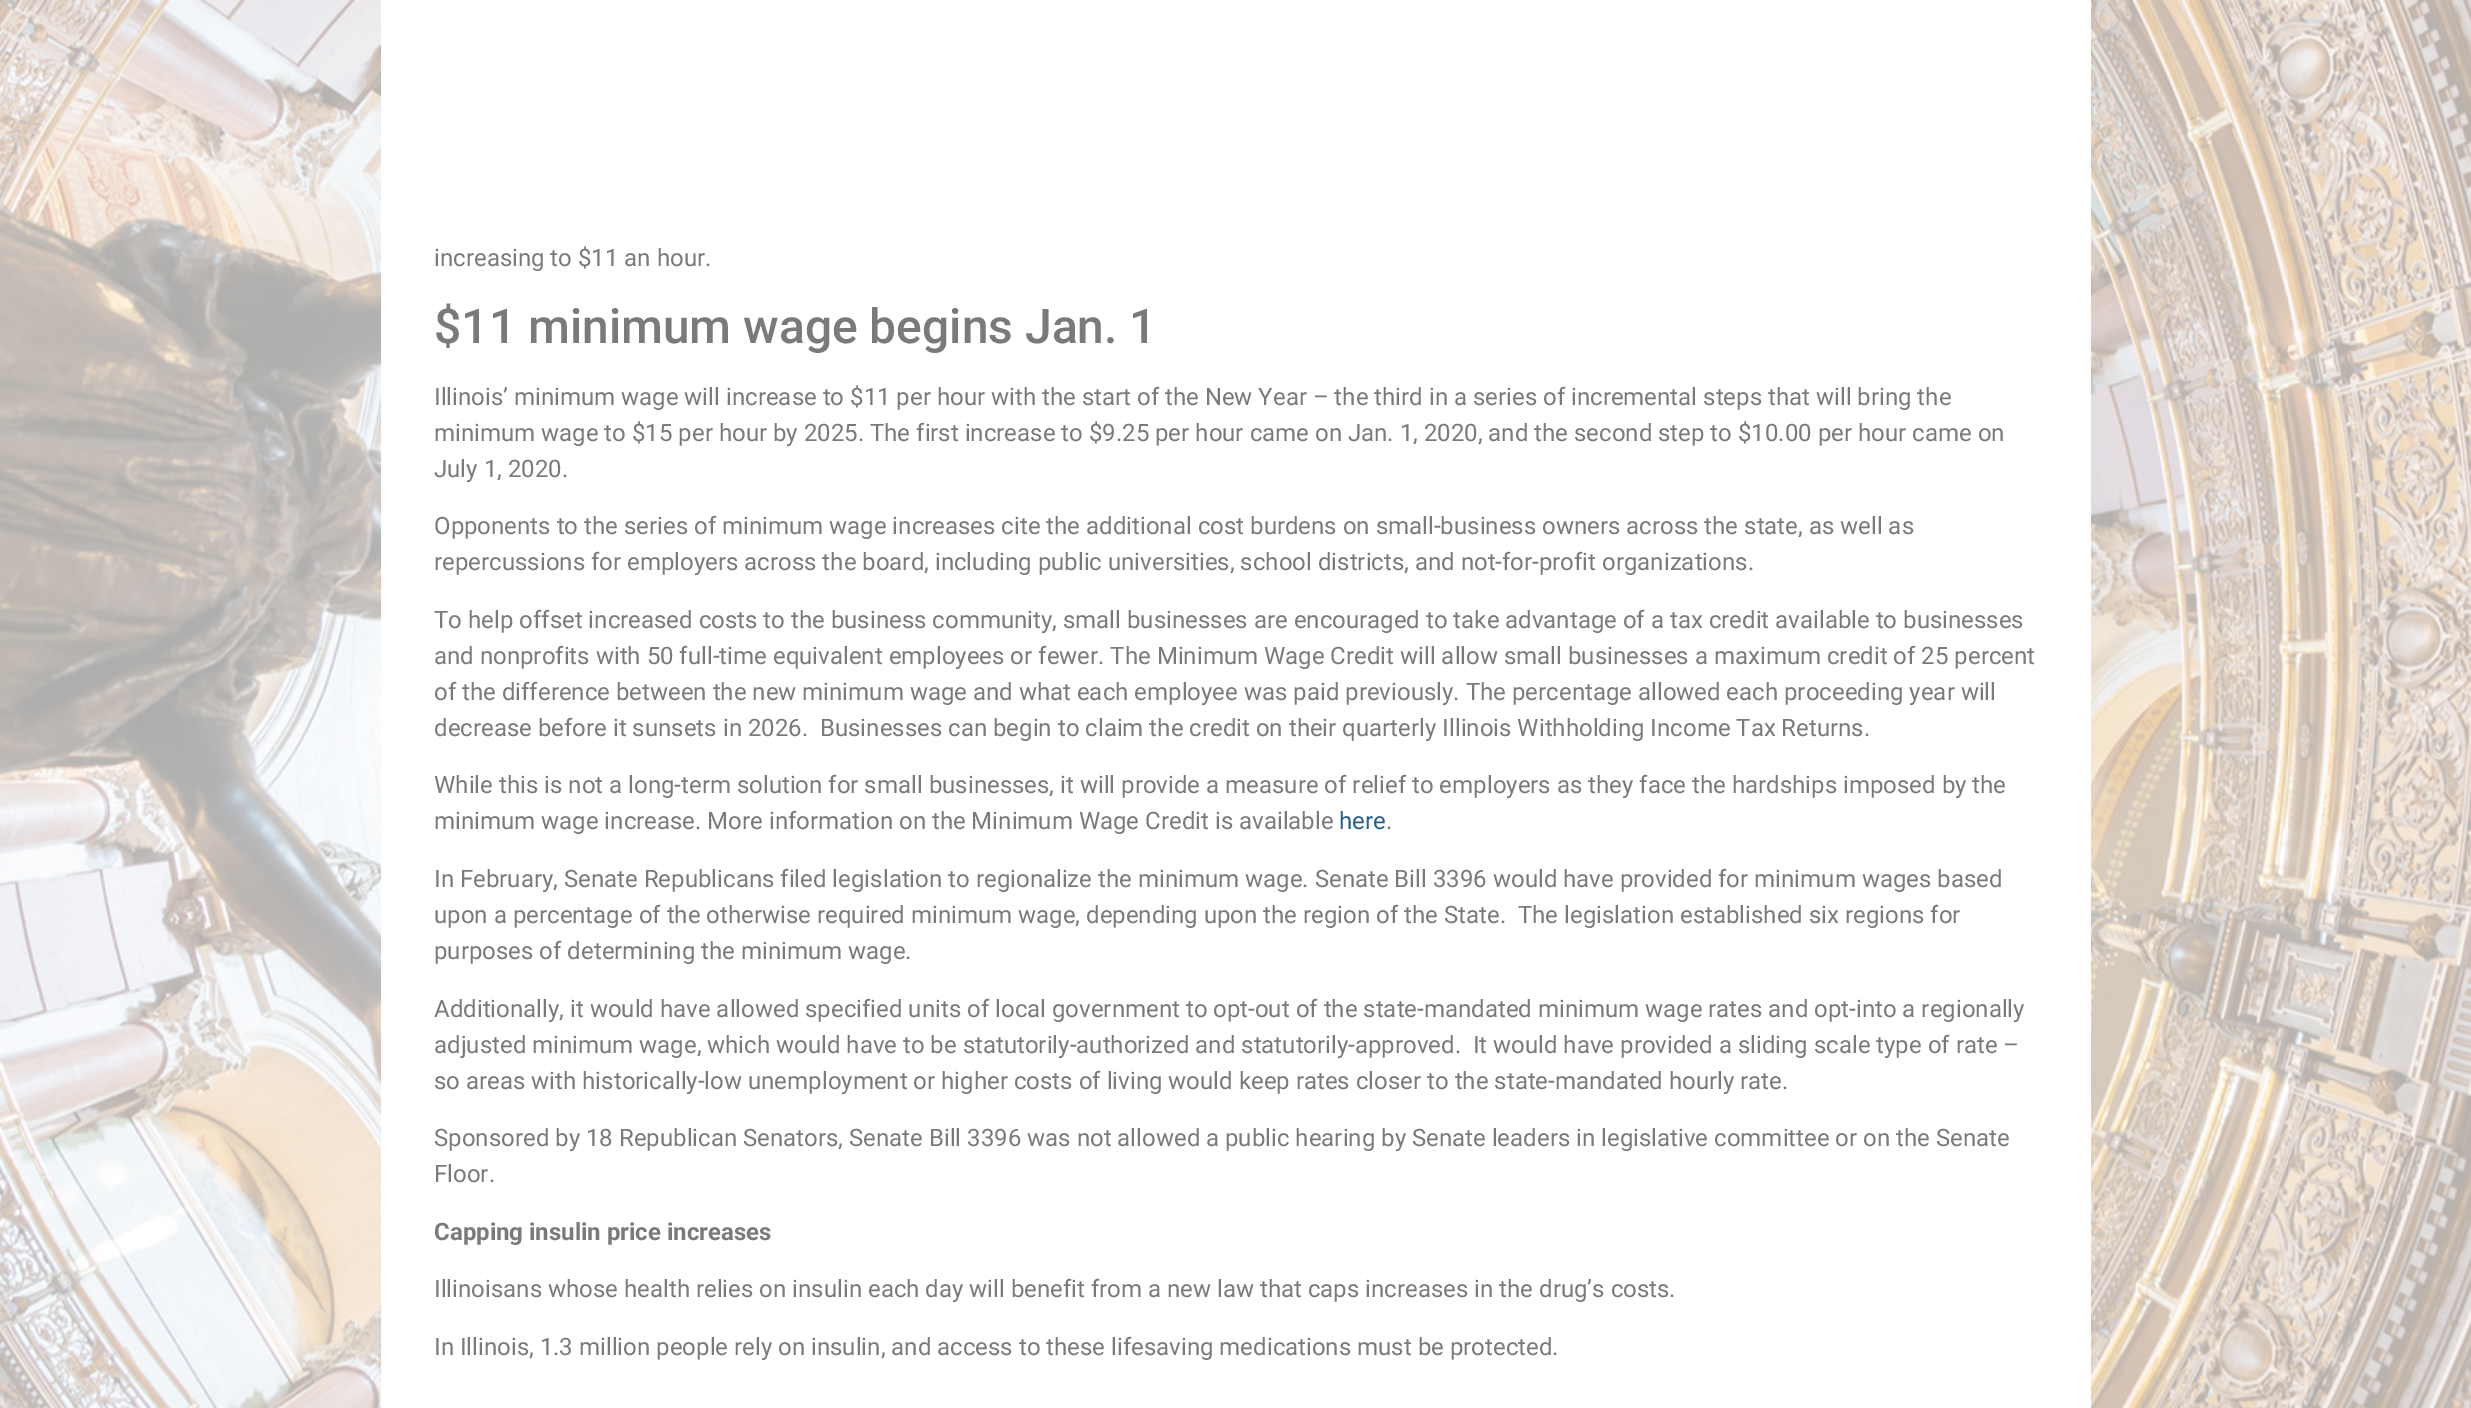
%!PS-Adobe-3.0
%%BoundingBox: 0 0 2471 1408
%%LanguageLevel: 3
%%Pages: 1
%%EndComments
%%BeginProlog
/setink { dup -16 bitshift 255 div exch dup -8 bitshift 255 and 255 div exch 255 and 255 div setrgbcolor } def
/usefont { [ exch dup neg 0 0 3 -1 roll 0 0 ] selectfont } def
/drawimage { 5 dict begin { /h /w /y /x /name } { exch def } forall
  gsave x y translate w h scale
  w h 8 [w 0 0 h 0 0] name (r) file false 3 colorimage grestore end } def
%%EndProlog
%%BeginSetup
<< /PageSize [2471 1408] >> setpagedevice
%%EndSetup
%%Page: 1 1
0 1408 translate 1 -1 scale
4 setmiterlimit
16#FFFFFF setink
0 0 2471 1408 rectfill
(img1.raw) 0 0 2471 1408 drawimage
381 0 1710 1408 rectfill
/Roboto-Regular 24 usefont
16#7A7A7A setink
434 266 moveto (increasing to $11 an hour.) show
/Roboto-Medium 48 usefont
434 343 moveto ($11 minimum wage begins Jan. 1) show
/Roboto-Regular 24 usefont
[
    [(Illinois’ minimum wage will increase to $11 per hour with the start of the New Year – the third in a series of incremental steps that will bring the) 434 405]
    [(minimum wage to $15 per hour by 2025. The first increase to $9.25 per hour came on Jan. 1, 2020, and the second step to $10.00 per hour came on) 434 441]
    [(July 1, 2020.) 434 477]
    [(Opponents to the series of minimum wage increases cite the additional cost burdens on small-business owners across the state, as well as) 434 534]
    [(repercussions for employers across the board, including public universities, school districts, and not-for-profit organizations.) 434 570]
    [(To help offset increased costs to the business community, small businesses are encouraged to take advantage of a tax credit available to businesses) 434 628]
    [(and nonprofits with 50 full-time equivalent employees or fewer. The Minimum Wage Credit will allow small businesses a maximum credit of 25 percent) 434 664]
    [(of the difference between the new minimum wage and what each employee was paid previously. The percentage allowed each proceeding year will) 434 700]
    [(decrease before it sunsets in 2026.  Businesses can begin to claim the credit on their quarterly Illinois Withholding Income Tax Returns.) 434 736]
    [(While this is not a long-term solution for small businesses, it will provide a measure of relief to employers as they face the hardships imposed by the) 434 793]
    [(minimum wage increase. More information on the Minimum Wage Credit is available) 434 829]
] { aload pop moveto show } forall
16#23608C setink
1339 829 moveto (here) show
16#7A7A7A setink
[
    [(.) 1386 829]
    [(In February, Senate Republicans filed legislation to regionalize the minimum wage. Senate Bill 3396 would have provided for minimum wages based) 434 887]
    [(upon a percentage of the otherwise required minimum wage, depending upon the region of the State.  The legislation established six regions for) 434 923]
    [(purposes of determining the minimum wage.) 434 959]
    [(Additionally, it would have allowed specified units of local government to opt-out of the state-mandated minimum wage rates and opt-into a regionally) 434 1017]
    [(adjusted minimum wage, which would have to be statutorily-authorized and statutorily-approved.  It would have provided a sliding scale type of rate –) 434 1053]
    [(so areas with historically-low unemployment or higher costs of living would keep rates closer to the state-mandated hourly rate.) 434 1089]
    [(Sponsored by 18 Republican Senators, Senate Bill 3396 was not allowed a public hearing by Senate leaders in legislative committee or on the Senate) 434 1146]
    [(Floor.) 434 1182]
] { aload pop moveto show } forall
/Roboto-Bold 24 usefont
434 1240 moveto (Capping insulin price increases) show
/Roboto-Regular 24 usefont
434 1297 moveto (Illinoisans whose health relies on insulin each day will benefit from a new law that caps increases in the drug’s costs.) show
434 1355 moveto (In Illinois, 1.3 million people rely on insulin, and access to these lifesaving medications must be protected.) show
showpage
%%EOF
